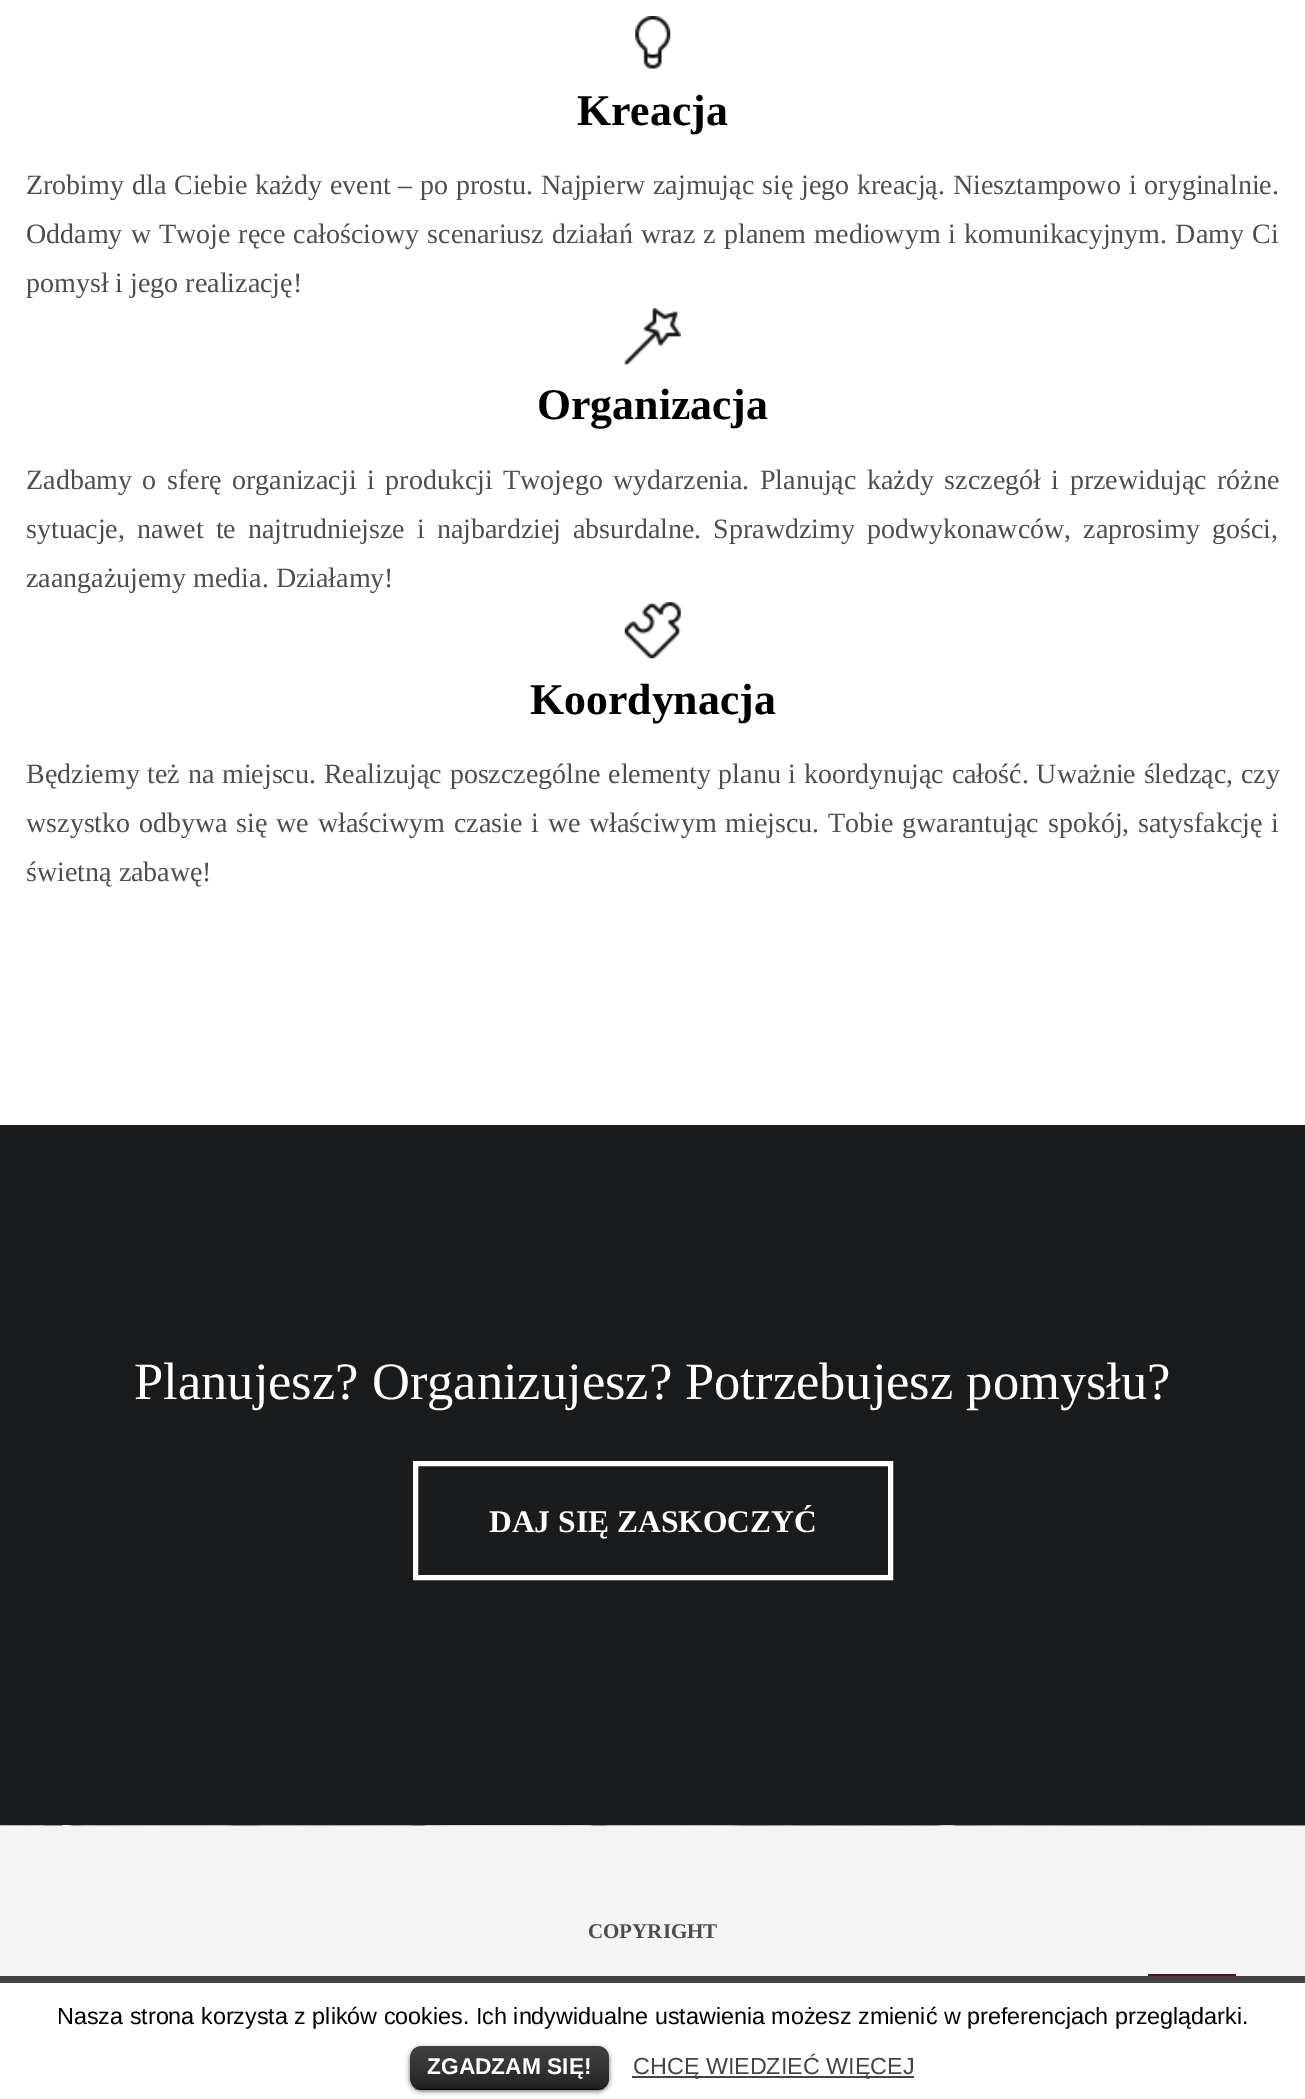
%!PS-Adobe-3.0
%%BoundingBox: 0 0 1305 2099
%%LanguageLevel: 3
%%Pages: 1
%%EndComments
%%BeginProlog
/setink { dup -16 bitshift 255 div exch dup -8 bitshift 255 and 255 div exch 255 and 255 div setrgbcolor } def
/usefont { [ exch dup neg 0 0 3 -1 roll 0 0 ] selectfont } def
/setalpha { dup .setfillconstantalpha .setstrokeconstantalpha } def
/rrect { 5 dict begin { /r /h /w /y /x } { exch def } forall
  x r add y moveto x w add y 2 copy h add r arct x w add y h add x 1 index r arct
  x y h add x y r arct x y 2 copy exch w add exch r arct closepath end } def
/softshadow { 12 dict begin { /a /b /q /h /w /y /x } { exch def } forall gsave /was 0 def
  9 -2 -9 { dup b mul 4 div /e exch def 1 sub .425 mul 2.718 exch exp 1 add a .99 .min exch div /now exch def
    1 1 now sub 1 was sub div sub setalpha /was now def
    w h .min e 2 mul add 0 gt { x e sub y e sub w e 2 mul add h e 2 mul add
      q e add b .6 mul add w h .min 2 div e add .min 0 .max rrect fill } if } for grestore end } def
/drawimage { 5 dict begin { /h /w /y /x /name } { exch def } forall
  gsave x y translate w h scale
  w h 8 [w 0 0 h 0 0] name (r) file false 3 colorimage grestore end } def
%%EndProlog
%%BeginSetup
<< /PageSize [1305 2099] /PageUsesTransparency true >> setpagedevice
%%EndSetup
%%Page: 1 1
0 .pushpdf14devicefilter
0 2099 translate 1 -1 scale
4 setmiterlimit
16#FFFFFF setink
0 0 1305 2099 rectfill
(img1.raw) 635 16 36 53 drawimage
/LiberationSerif-Bold 43.75 usefont
16#000000 setink
577 125 moveto (Kreacja) show
/LiberationSerif-Regular 28 usefont
16#4C4D4F setink
26 194 moveto 0.9 0 32 (Zrobimy dla Ciebie każdy event – po prostu. Najpierw zajmując się jego kreacją. Niesztampowo i oryginalnie.) widthshow
26 243 moveto 1.1 0 32 (Oddamy w Twoje ręce całościowy scenariusz działań wraz z planem mediowym i komunikacyjnym. Damy Ci) widthshow
26 292 moveto (pomysł i jego realizację!) show
(img2.raw) 624 308 57 57 drawimage
/LiberationSerif-Bold 43.75 usefont
16#000000 setink
537 419 moveto (Organizacja) show
/LiberationSerif-Regular 28 usefont
16#4C4D4F setink
26 489 moveto 3.6 0 32 (Zadbamy o sferę organizacji i produkcji Twojego wydarzenia. Planując każdy szczegół i przewidując różne) widthshow
26 538 moveto 5 0 32 (sytuacje, nawet te najtrudniejsze i najbardziej absurdalne. Sprawdzimy podwykonawców, zaprosimy gości,) widthshow
26 587 moveto (zaangażujemy media. Działamy!) show
(img3.raw) 624 602 57 57 drawimage
/LiberationSerif-Bold 43.75 usefont
16#000000 setink
530 714 moveto (Koordynacja) show
/LiberationSerif-Regular 28 usefont
16#4C4D4F setink
26 783 moveto 0.75 0 32 (Będziemy też na miejscu. Realizując poszczególne elementy planu i koordynując całość. Uważnie śledząc, czy) widthshow
26 832 moveto 1.75 0 32 (wszystko odbywa się we właściwym czasie i we właściwym miejscu. Tobie gwarantując spokój, satysfakcję i) widthshow
26 881 moveto (świetną zabawę!) show
16#F4F4F4 setink
0 1825 1305 151 rectfill
(img4.raw) 0 1825 1305 1 drawimage
16#191B1D setink
0 1125 1305 700 rectfill
/LiberationSerif-Regular 52.5 usefont
16#FFFFFF setink
134 1399 moveto (Planujesz? Organizujesz? Potrzebujesz pomysłu?) show
5 setlinewidth
415.5 1463.5 475 114 rectstroke
/LiberationSerif-Bold 31.5 usefont
489 1532 moveto (DAJ SIĘ ZASKOCZYĆ) show
/LiberationSerif-Bold 21 usefont
16#4C4D4F setink
588 1938 moveto (COPYRIGHT) show
16#660033 setink
1148 1974 88 2 rectfill
16#444444 setink
0 1976 1305 7 rectfill
/LiberationSans-Regular 23.33 usefont
16#000000 setink
57 2024 moveto (Nasza strona korzysta z plików cookies. Ich indywidualne ustawienia możesz zmienić w preferencjach przeglądarki.) show
410 2048 199 43 11 2.5 0.6 softshadow
410 2046 199 44 11 rrect fill
(img5.raw) 410 2046 199 44 drawimage
0.25 setalpha
415 2088 189 2 rectfill
/LiberationSans-Bold 22.75 usefont
1 setalpha
16#FFFFFF setink
427 2074 moveto (ZGADZAM SIĘ!) show
16#444444 setink
632 2076 282 2 rectfill
/LiberationSans-Regular 23.33 usefont
633 2074 moveto (CHCĘ WIEDZIEĆ WIĘCEJ) show
.poppdf14devicefilter showpage
%%EOF
